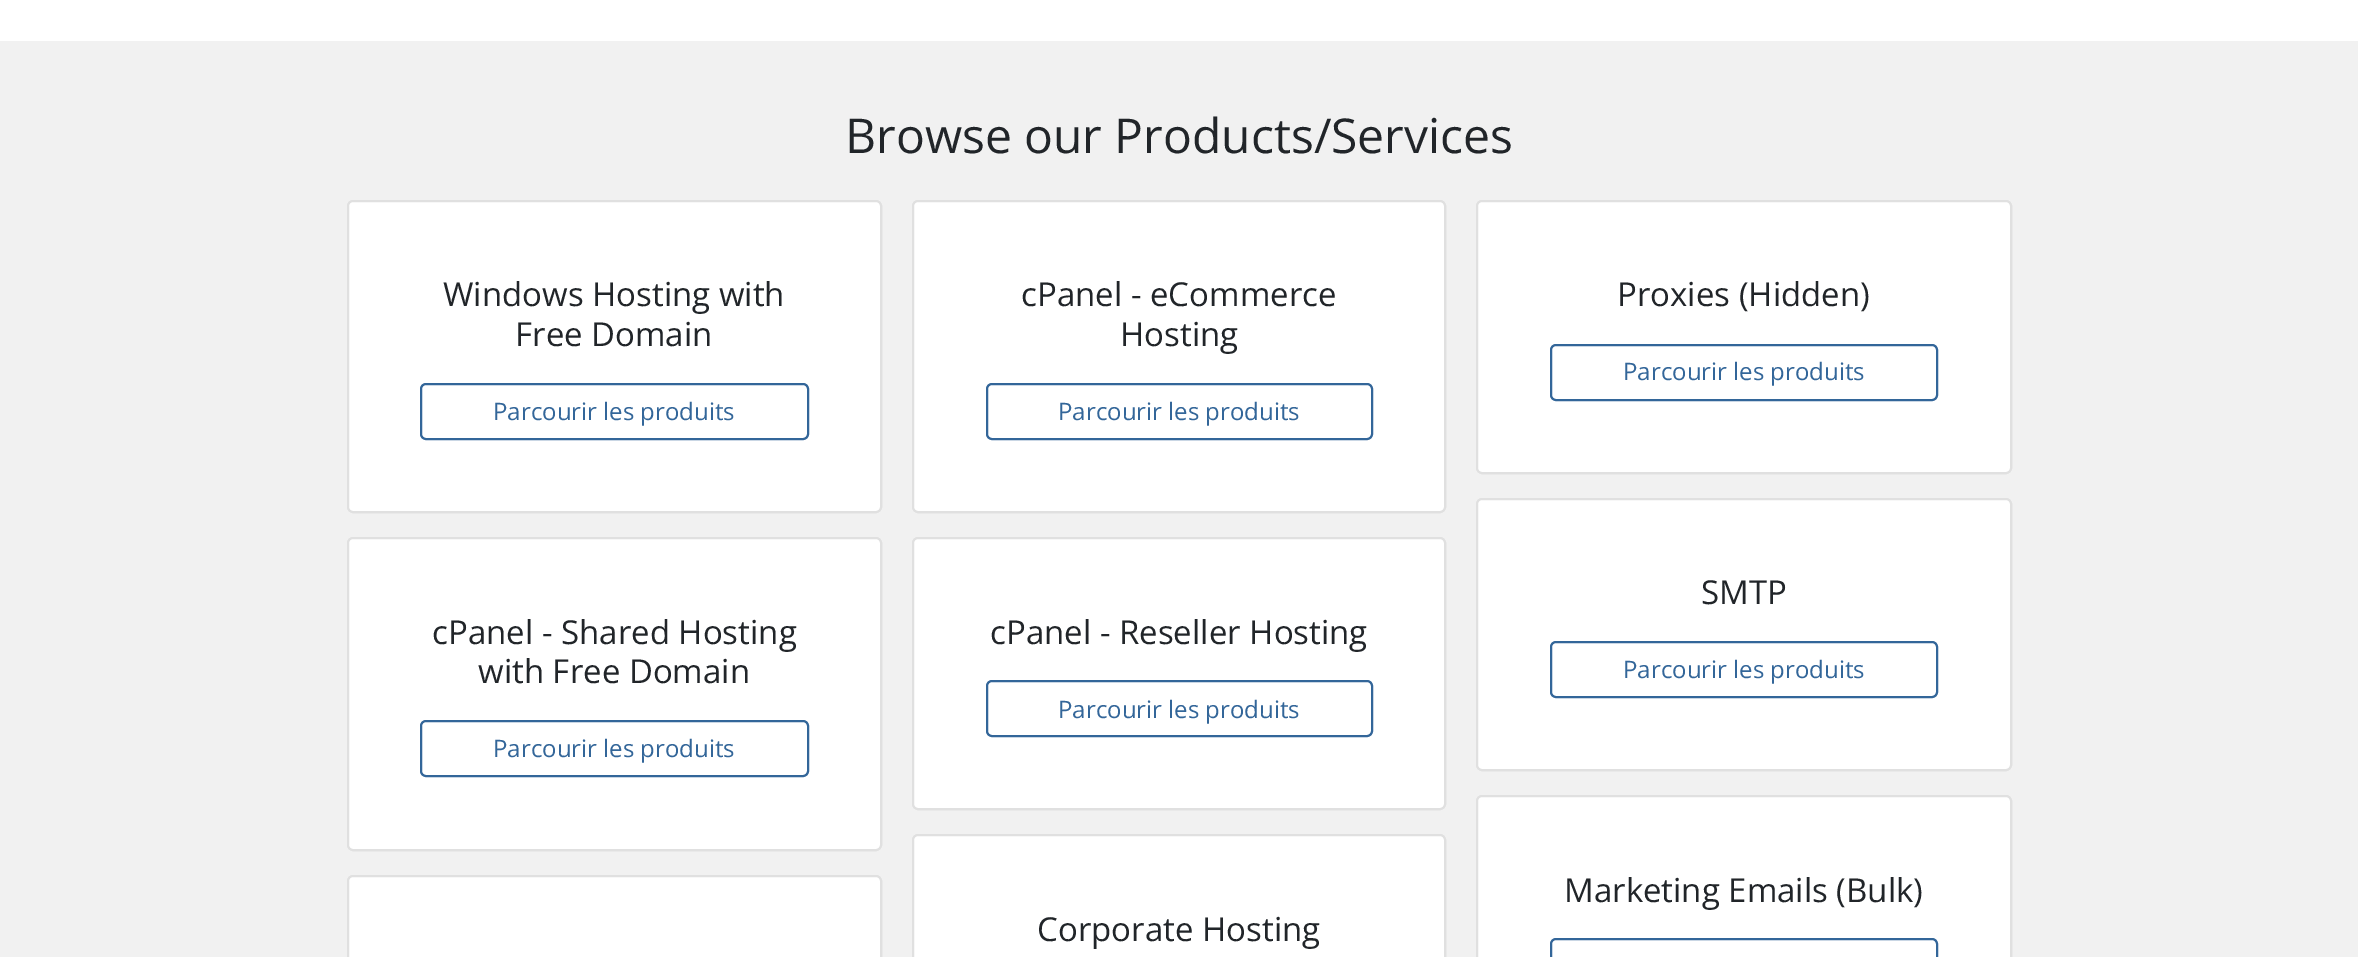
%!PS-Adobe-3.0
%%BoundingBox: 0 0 2358 957
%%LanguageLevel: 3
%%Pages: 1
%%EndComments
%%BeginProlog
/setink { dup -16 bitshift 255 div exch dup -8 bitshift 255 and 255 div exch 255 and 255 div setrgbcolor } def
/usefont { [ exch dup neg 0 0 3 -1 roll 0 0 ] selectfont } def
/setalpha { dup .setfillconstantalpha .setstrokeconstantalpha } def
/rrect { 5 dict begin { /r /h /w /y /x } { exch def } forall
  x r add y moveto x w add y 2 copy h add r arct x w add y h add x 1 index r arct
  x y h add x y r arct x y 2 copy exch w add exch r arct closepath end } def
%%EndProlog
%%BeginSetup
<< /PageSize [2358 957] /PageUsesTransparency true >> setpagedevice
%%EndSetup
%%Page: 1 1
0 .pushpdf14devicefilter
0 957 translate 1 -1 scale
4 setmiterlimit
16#F1F1F1 setink
0 0 2358 957 rectfill
16#FFFFFF setink
0 0 2358 41 rectfill
/OpenSans-Regular 48 usefont
16#212529 setink
845 153 moveto (Browse our Products/Services) show
16#FFFFFF setink
347 200 535 313 6 rrect fill
0.12 setalpha
16#000000 setink
2 setlinewidth
348 201 533 311 5 rrect stroke
/OpenSans-Regular 33 usefont
1 setalpha
16#212529 setink
443 306 moveto (Windows Hosting with) show
515 346 moveto (Free Domain) show
16#336699 setink
421 384 387 55 5 rrect stroke
/OpenSans-Regular 24 usefont
493 420 moveto (Parcourir les produits) show
16#FFFFFF setink
912 200 534 313 6 rrect fill
0.12 setalpha
16#000000 setink
913 201 532 311 5 rrect stroke
/OpenSans-Regular 33 usefont
1 setalpha
16#212529 setink
1021 306 moveto (cPanel - eCommerce) show
1120 346 moveto (Hosting) show
16#336699 setink
987 384 385 55 5 rrect stroke
/OpenSans-Regular 24 usefont
1058 420 moveto (Parcourir les produits) show
16#FFFFFF setink
1476 200 536 274 6 rrect fill
0.12 setalpha
16#000000 setink
1477 201 534 272 5 rrect stroke
/OpenSans-Regular 33 usefont
1 setalpha
16#212529 setink
1617 306 moveto (Proxies \(Hidden\)) show
16#336699 setink
1551 345 386 55 5 rrect stroke
/OpenSans-Regular 24 usefont
1623 380 moveto (Parcourir les produits) show
16#FFFFFF setink
347 537 535 314 6 rrect fill
0.12 setalpha
16#000000 setink
348 538 533 312 5 rrect stroke
/OpenSans-Regular 33 usefont
1 setalpha
16#212529 setink
432 644 moveto (cPanel - Shared Hosting) show
478 683 moveto (with Free Domain) show
16#336699 setink
421 721 387 55 5 rrect stroke
/OpenSans-Regular 24 usefont
493 757 moveto (Parcourir les produits) show
16#FFFFFF setink
912 537 534 273 6 rrect fill
0.12 setalpha
16#000000 setink
913 538 532 271 5 rrect stroke
/OpenSans-Regular 33 usefont
1 setalpha
16#212529 setink
990 644 moveto (cPanel - Reseller Hosting) show
16#336699 setink
987 681 385 55 5 rrect stroke
/OpenSans-Regular 24 usefont
1058 718 moveto (Parcourir les produits) show
16#FFFFFF setink
1476 498 536 273 6 rrect fill
0.12 setalpha
16#000000 setink
1477 499 534 271 5 rrect stroke
/OpenSans-Regular 33 usefont
1 setalpha
16#212529 setink
1701 604 moveto (SMTP) show
16#336699 setink
1551 642 386 55 5 rrect stroke
/OpenSans-Regular 24 usefont
1623 678 moveto (Parcourir les produits) show
16#FFFFFF setink
347 875 535 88 6 rrect fill
0.12 setalpha
16#000000 setink
348 876 533 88 5 rrect stroke
1 setalpha
16#FFFFFF setink
1476 795 536 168 6 rrect fill
0.12 setalpha
16#000000 setink
1477 796 534 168 5 rrect stroke
/OpenSans-Regular 33 usefont
1 setalpha
16#212529 setink
1564 902 moveto (Marketing Emails \(Bulk\)) show
16#336699 setink
1551 939 386 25 5 rrect stroke
16#FFFFFF setink
912 834 534 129 6 rrect fill
0.12 setalpha
16#000000 setink
913 835 532 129 5 rrect stroke
1 setalpha
16#212529 setink
1037 941 moveto (Corporate Hosting) show
.poppdf14devicefilter showpage
%%EOF
